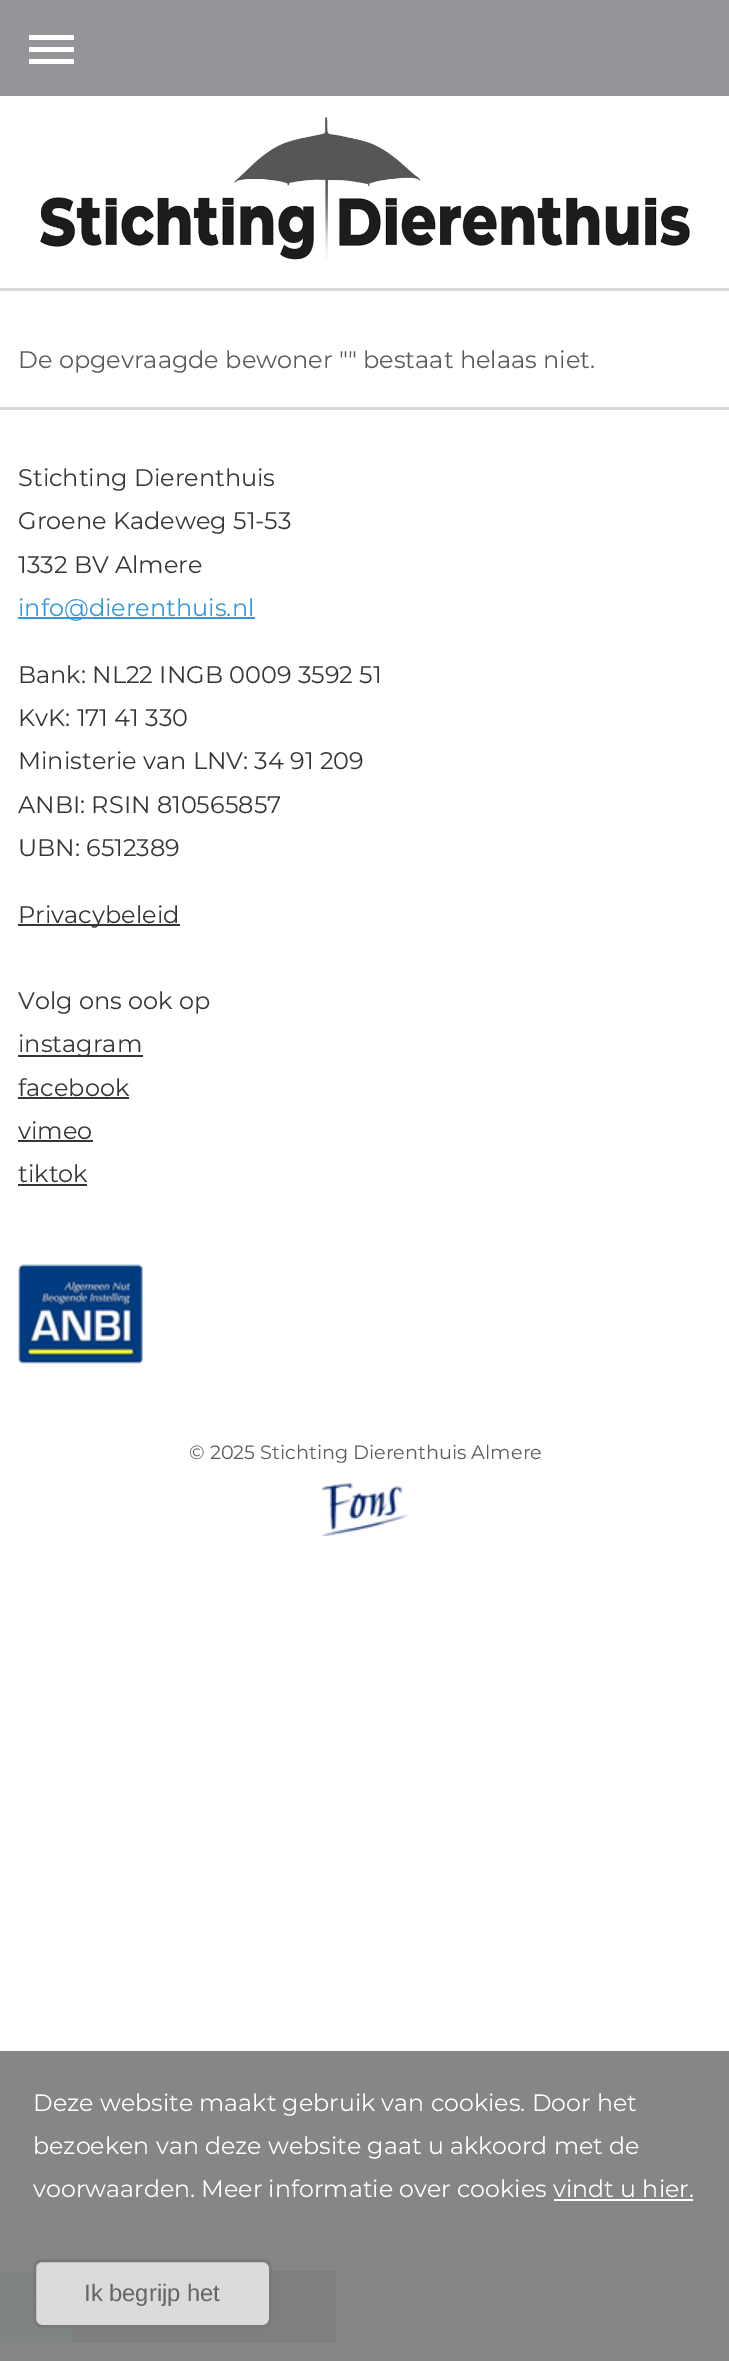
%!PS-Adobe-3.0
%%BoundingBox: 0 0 729 2361
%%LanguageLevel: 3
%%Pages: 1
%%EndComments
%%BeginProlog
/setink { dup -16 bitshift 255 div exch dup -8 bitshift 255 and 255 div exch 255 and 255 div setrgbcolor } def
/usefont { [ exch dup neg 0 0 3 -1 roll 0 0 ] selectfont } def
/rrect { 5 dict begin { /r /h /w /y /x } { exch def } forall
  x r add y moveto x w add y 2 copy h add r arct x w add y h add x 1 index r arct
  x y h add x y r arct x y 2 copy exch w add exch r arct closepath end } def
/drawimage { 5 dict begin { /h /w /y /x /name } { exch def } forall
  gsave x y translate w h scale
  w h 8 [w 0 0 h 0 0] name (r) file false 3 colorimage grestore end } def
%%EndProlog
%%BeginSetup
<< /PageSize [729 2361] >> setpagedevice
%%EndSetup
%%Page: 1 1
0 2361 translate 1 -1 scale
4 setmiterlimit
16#FFFFFF setink
0 0 729 2361 rectfill
[
    [0 2051 729 310 16#868686]
    [0 288 729 3 16#D9D8D8]
    [0 0 729 96 16#949599]
    [29 35 45 5 16#FFFFFF]
    [29 47 45 5 16#FFFFFF]
    [29 59 45 5 16#FFFFFF]
] { aload pop setink rectfill } forall
(img1.raw) 40 117 650 143 drawimage
/Montserrat-Regular 24 usefont
16#5B5B5D setink
18 368 moveto (De opgevraagde bewoner "" bestaat helaas niet.) show
16#D9D8D8 setink
0 407 729 3 rectfill
16#363638 setink
[
    [(Stichting Dierenthuis) 18 486]
    [(Groene Kadeweg 51-53) 18 529]
    [(1332 BV Almere) 18 573]
] { aload pop moveto show } forall
16#3598DB setink
18 617 237 2 rectfill
18 616 moveto (info@dierenthuis.nl) show
16#363638 setink
[
    [(Bank: NL22 INGB 0009 3592 51) 18 683]
    [(KvK: 171 41 330) 18 726]
    [(Ministerie van LNV: 34 91 209) 18 769]
    [(ANBI: RSIN 810565857) 18 813]
    [(UBN: 6512389) 18 856]
] { aload pop moveto show } forall
18 924 162 2 rectfill
18 923 moveto (Privacybeleid) show
18 1009 moveto (Volg ons ook op) show
18 1055 125 2 rectfill
18 1052 moveto (instagram) show
18 1096 moveto (facebook) show
18 1097 111 2 rectfill
18 1139 moveto (vimeo) show
18 1140 75 2 rectfill
18 1182 moveto (tiktok) show
18 1184 69 2 rectfill
(img2.raw) 18 1264 125 100 drawimage
/Montserrat-Regular 19.25 usefont
16#5B5B5D setink
189 1459 moveto (© 2025 Stichting Dierenthuis Almere) show
(img3.raw) 321 1483 87 53 drawimage
/Montserrat-Regular 23.75 usefont
16#FFFFFF setink
[
    [(Deze website maakt gebruik van cookies. Door het) 33 2111]
    [(bezoeken van deze website gaat u akkoord met de) 33 2154]
    [(voorwaarden. Meer informatie over cookies) 33 2197]
    [(vindt u hier.) 553 2197]
] { aload pop moveto show } forall
[
    [554 2199 139 2 16#FFFFFF]
    [72 2271 264 72 16#7F7F7F]
    [0 2271 72 72 16#7F8681]
] { aload pop setink rectfill } forall
16#7C7C7C setink
33 2296.5 moveto 43.5 2307 lineto 41.5 2309 lineto 31 2298.5 lineto closepath fill
41.5 2305 moveto 43.5 2307 lineto 33 2317.5 lineto 31 2315.5 lineto closepath fill
16#DBDBDB setink
34.5 2260.5 236 66 7.5 rrect gsave fill grestore
16#7A7A7A setink
3 setlinewidth
stroke
/LiberationSans-Regular 23.75 usefont
16#666666 setink
84 2301 moveto (Ik begrijp het) show
showpage
%%EOF
